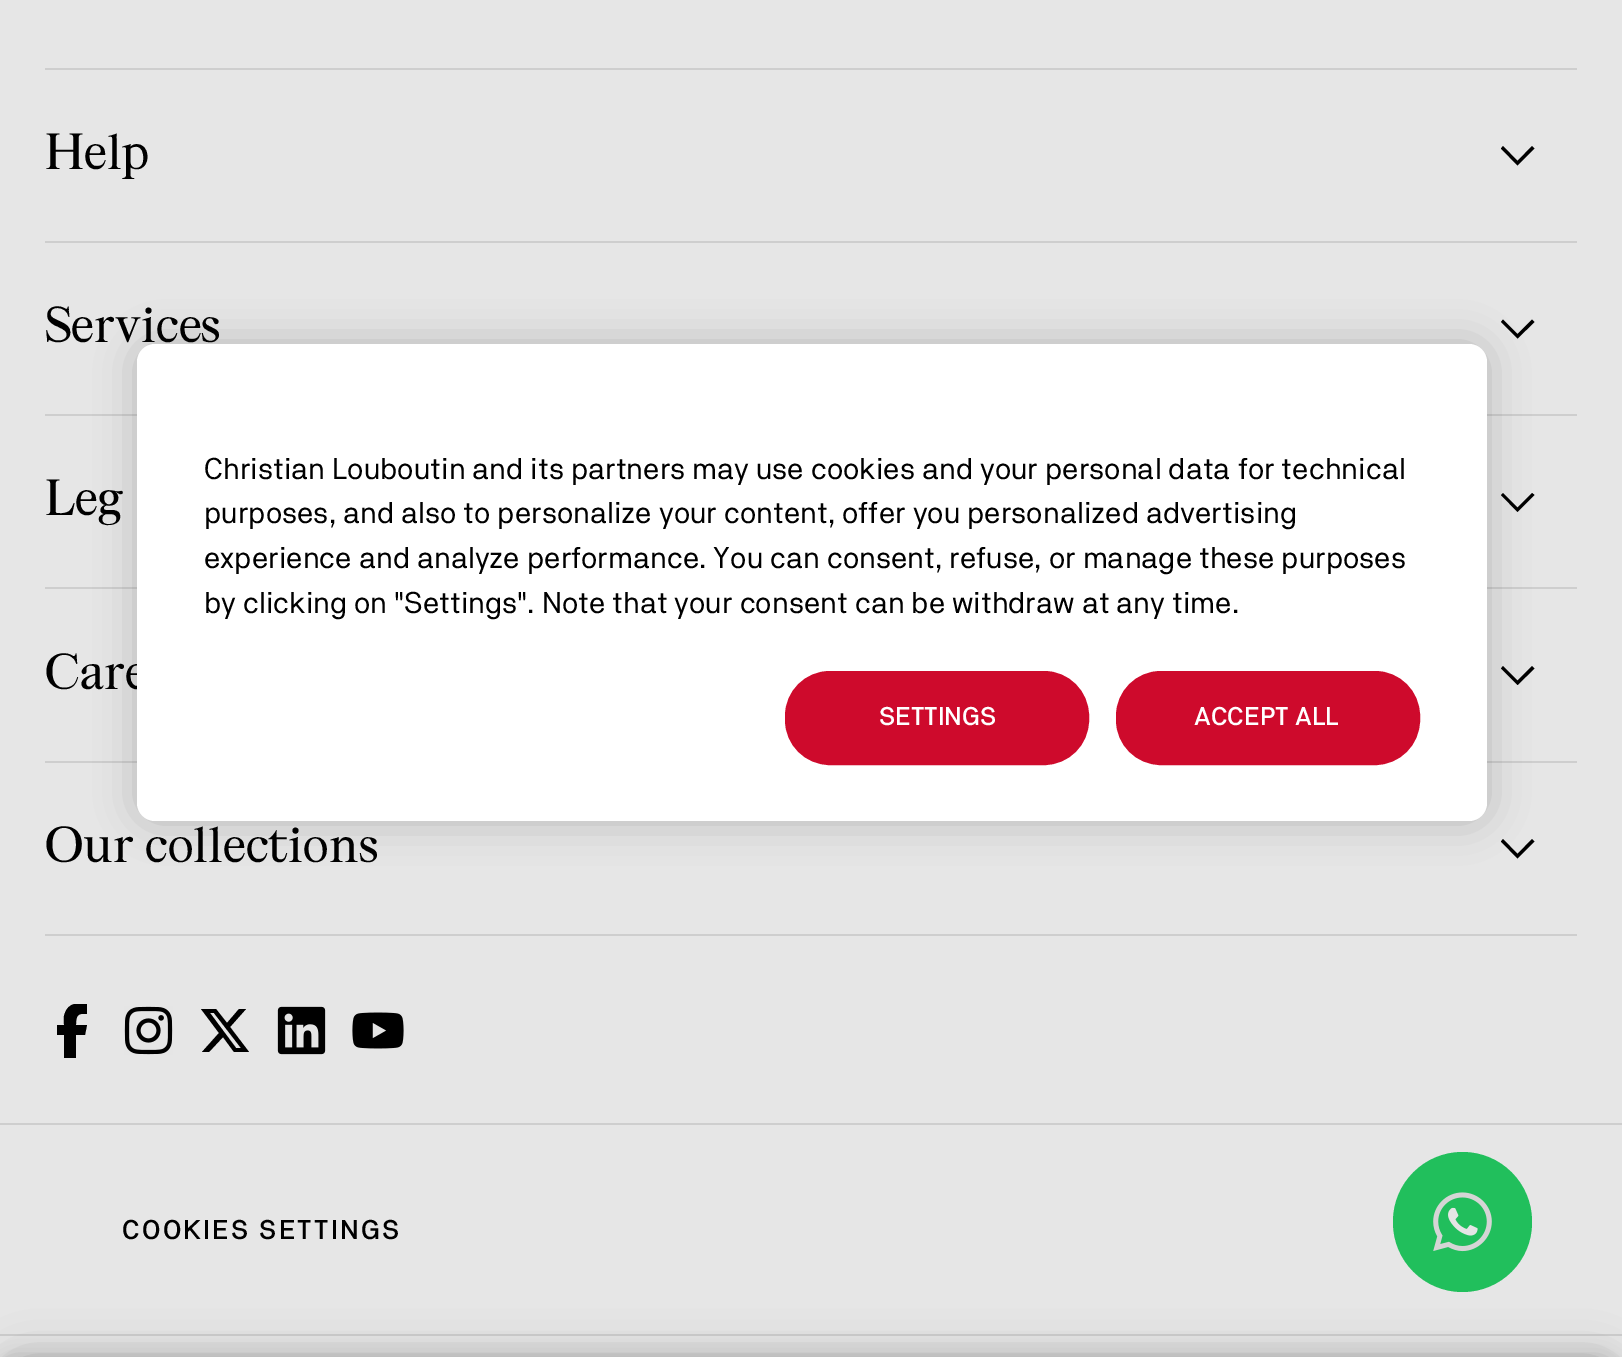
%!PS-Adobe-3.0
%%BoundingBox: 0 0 1622 1357
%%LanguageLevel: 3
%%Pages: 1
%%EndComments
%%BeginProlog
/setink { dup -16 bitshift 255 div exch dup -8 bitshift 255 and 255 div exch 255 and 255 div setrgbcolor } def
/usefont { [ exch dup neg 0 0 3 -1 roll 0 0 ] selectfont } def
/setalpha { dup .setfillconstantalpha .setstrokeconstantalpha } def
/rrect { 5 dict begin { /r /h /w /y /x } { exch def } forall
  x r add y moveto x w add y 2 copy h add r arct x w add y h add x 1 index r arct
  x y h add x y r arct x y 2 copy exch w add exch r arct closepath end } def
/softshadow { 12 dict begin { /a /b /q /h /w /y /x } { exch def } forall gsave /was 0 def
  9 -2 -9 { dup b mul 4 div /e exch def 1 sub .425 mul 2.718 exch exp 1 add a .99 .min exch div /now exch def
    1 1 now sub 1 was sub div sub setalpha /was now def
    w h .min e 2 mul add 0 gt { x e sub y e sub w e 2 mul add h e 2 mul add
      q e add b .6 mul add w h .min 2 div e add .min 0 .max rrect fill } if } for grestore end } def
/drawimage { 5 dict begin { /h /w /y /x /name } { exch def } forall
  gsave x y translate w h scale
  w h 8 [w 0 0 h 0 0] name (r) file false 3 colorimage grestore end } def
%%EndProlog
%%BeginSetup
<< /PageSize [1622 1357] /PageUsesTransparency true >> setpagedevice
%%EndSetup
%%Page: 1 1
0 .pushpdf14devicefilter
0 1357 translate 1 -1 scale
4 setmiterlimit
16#E6E6E6 setink
0 0 1622 1357 rectfill
16#CECECE setink
45 68 1532 2 rectfill
45 241 1532 2 rectfill
/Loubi-Regular 49.5 usefont
16#000000 setink
45 169 moveto (Help) show
1517.5 165.5 moveto 1501 148.5 lineto 1503 146 lineto 1517.5 161 lineto 1532 146 lineto 1534.5 148.5 lineto closepath fill
16#CECECE setink
45 414 1532 2 rectfill
16#000000 setink
45 342 moveto (Services) show
1517.5 338.5 moveto 1501 322 lineto 1503 319.5 lineto 1517.5 334 lineto 1532 319.5 lineto 1534.5 322 lineto closepath fill
16#CECECE setink
45 587 1532 2 rectfill
16#000000 setink
45 515 moveto (Leg) show
1517.5 512 moveto 1501 495 lineto 1503 493 lineto 1517.5 507.5 lineto 1532 493 lineto 1534.5 495 lineto closepath fill
16#CECECE setink
45 761 1532 2 rectfill
16#000000 setink
45 689 moveto (Care) show
1517.5 685 moveto 1501 668.5 lineto 1503 666 lineto 1517.5 680.5 lineto 1532 666 lineto 1534.5 668.5 lineto closepath fill
16#CECECE setink
45 934 1532 2 rectfill
16#000000 setink
45 862 moveto (Our collections) show
1517.5 858.5 moveto 1501 841.5 lineto 1503 839 lineto 1517.5 854 lineto 1532 839 lineto 1534.5 841.5 lineto closepath fill
gsave
45 1004 54 54 rectclip
64 1035 moveto 64 1058 lineto 76 1058 lineto 76 1035 lineto 85 1035 lineto 87 1025 lineto 76 1025 lineto 76 1015 78 1013 87 1014 curveto 87 1004 lineto 79 1002 68 1003 65 1013 curveto 63 1017 64 1021 64 1025 curveto 57 1025 lineto 57 1035 lineto closepath fill
grestore
(img1.raw) 124 1006 49 49 drawimage
239 1009 moveto 246 1009 lineto 230 1027 lineto 249 1052 lineto 234 1052 lineto 223 1037 lineto 209 1052 lineto 202 1052 lineto 219 1033 lineto 201 1009 lineto 216 1009 lineto 227 1023 lineto closepath 236 1048 moveto 241 1048 lineto 214 1013 lineto 210 1013 lineto closepath fill
(img2.raw) 277 1006 49 49 drawimage
(img3.raw) 352 1012 52 37 drawimage
16#CECECE setink
0 1123 1622 2 rectfill
/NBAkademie-Medium 27 usefont
16#000000 setink
122 1239 moveto 2.25 0 (COOKIES SETTINGS) ashow
16#CECECE setink
0 1334 1622 2 rectfill
gsave
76 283 moveto 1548 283 lineto 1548 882 lineto 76 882 lineto closepath 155 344 moveto 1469 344 lineto 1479 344 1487 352 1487 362 curveto 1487 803 lineto 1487 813 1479 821 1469 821 curveto 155 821 lineto 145 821 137 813 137 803 curveto 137 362 lineto 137 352 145 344 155 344 curveto closepath eoclip newpath
16#000000 setink
137 344 1350 477 18 20 0.2 softshadow
grestore
16#FFFFFF setink
137 344 1350 477 18 rrect fill
/NBAkademie-Regular 29.95 usefont
16#000000 setink
[
    [(Christian Louboutin and its partners may use cookies and your personal data for technical) 204 479]
    [(purposes, and also to personalize your content, offer you personalized advertising) 204 523]
    [(experience and analyze performance. You can consent, refuse, or manage these purposes) 204 568]
    [(by clicking on "Settings". Note that your consent can be withdraw at any time.) 204 613]
] { aload pop moveto show } forall
16#CE0A2C setink
786 672 302 92 44 rrect gsave fill grestore
2 setlinewidth
stroke
/NBAkademie-Medium 25.5 usefont
16#FFFFFF setink
879 725 moveto (SETTINGS) show
16#CE0A2C setink
1117 672 302 92 44 rrect gsave fill grestore
stroke
16#FFFFFF setink
1194 725 moveto (ACCEPT ALL) show
16#000000 setink
0 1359 1622 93 27 22.5 0.2 softshadow
16#21BF5C setink
1393 1152 139 140 69.5 rrect fill
(img4.raw) 1433 1192 59 60 drawimage
16#000000 setink
-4 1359 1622 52 27 9 0.2 softshadow
.poppdf14devicefilter showpage
%%EOF
